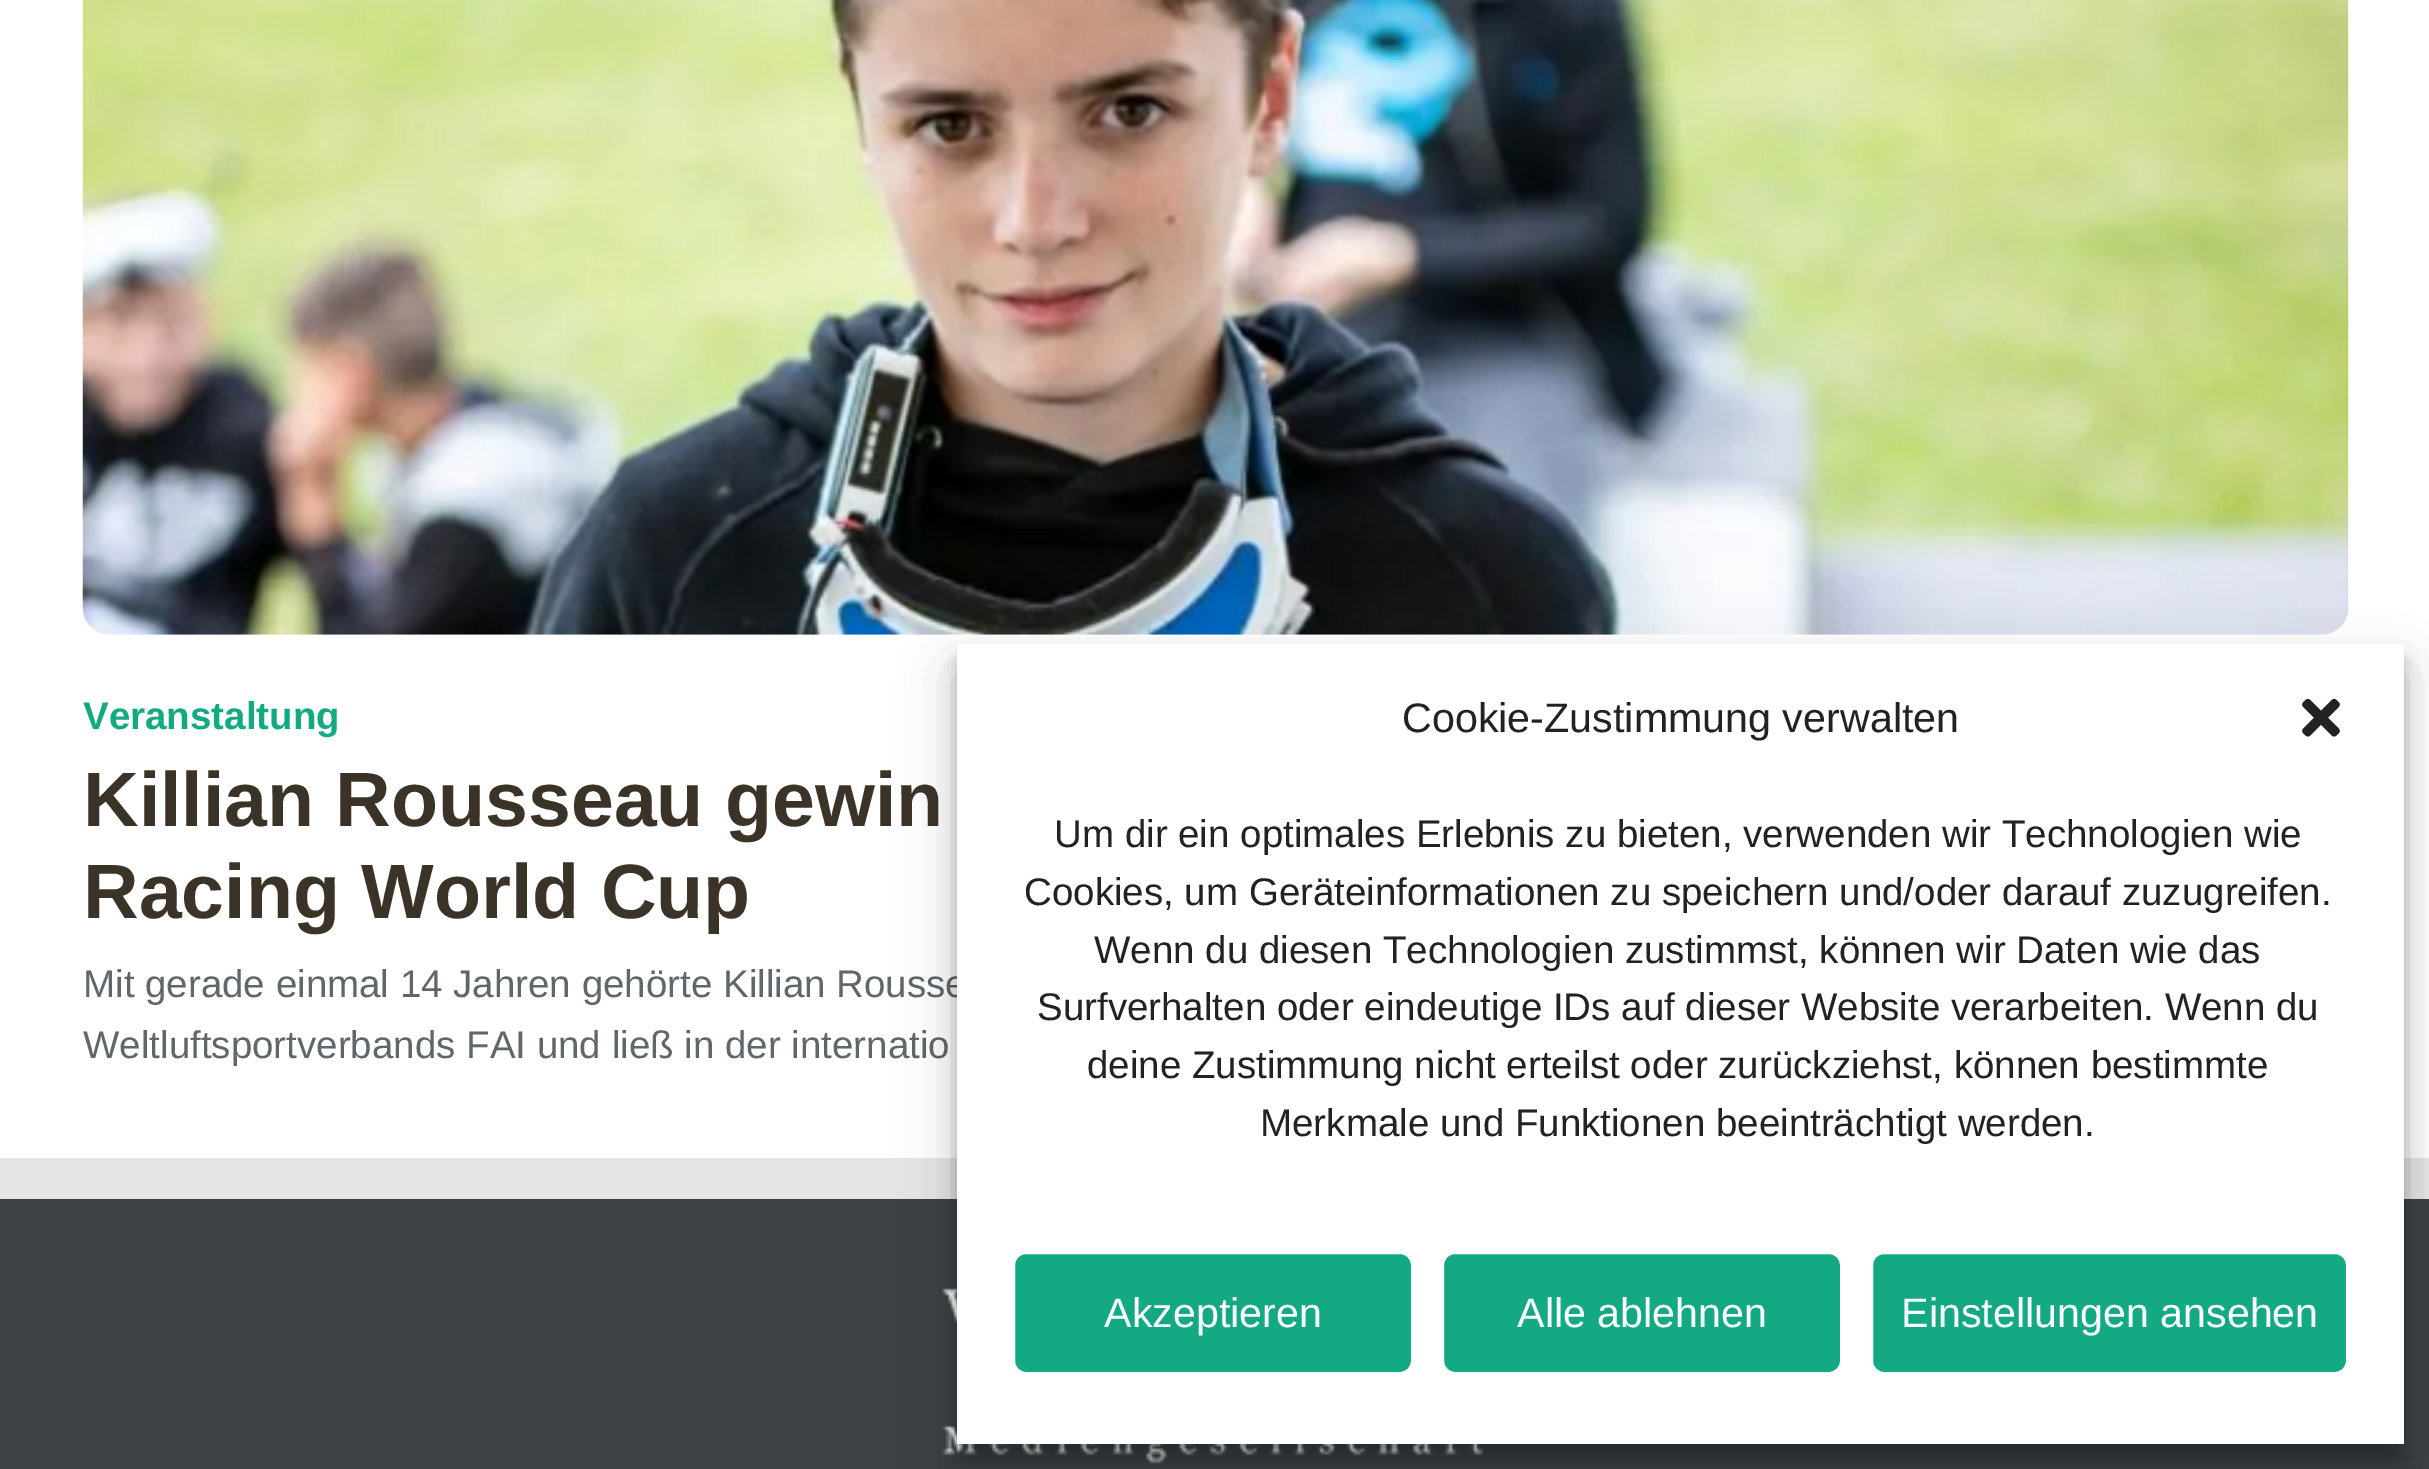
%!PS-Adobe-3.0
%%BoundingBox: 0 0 2429 1469
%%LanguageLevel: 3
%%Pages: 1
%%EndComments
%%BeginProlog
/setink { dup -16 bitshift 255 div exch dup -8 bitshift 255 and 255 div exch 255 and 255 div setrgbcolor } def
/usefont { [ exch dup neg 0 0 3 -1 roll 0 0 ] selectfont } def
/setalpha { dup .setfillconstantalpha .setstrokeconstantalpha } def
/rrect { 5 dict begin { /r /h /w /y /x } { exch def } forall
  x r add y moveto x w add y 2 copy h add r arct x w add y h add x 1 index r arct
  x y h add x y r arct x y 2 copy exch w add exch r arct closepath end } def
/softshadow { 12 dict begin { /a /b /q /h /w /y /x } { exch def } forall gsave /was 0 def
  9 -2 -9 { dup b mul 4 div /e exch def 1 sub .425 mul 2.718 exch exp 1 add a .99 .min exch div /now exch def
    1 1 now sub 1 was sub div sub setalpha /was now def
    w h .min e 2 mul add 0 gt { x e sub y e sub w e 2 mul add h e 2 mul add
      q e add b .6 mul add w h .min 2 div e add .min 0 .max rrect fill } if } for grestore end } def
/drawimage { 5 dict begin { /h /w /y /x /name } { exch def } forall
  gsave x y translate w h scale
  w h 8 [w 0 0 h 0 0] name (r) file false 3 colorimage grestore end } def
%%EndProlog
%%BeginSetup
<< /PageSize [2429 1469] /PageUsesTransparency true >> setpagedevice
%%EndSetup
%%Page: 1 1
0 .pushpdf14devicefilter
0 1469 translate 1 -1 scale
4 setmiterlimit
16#E6E6E6 setink
0 0 2429 1469 rectfill
16#FFFFFF setink
0 0 2429 1158 rectfill
(img1.raw) 82 0 2267 635 drawimage
/LiberationSans-Bold 38.5 usefont
16#13A983 setink
83 729 moveto (Veranstaltung) show
/LiberationSans-Bold 77 usefont
16#3C3328 setink
83 826 moveto (Killian Rousseau gewin) show
83 918 moveto (Racing World Cup) show
/LiberationSans-Regular 38.5 usefont
16#5F676B setink
83 997 moveto (Mit gerade einmal 14 Jahren gehörte Killian Rousse) show
83 1058 moveto (Weltluftsportverbands FAI und ließ in der internatio) show
16#3C4246 setink
0 1199 2429 270 rectfill
(img3.raw) 942 1288 543 176 drawimage
16#000000 setink
957 660 1447 800 0 8 0.23 softshadow
957 671 1447 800 0 27.5 0.19 softshadow
16#FFFFFF setink
957 644 1447 800 rectfill
/LiberationSans-Regular 41.25 usefont
16#222222 setink
1402 732 moveto (Cookie-Zustimmung verwalten) show
(img2.raw) 2302 698 38 39 drawimage
/LiberationSans-Regular 38.5 usefont
[
    [(Um dir ein optimales Erlebnis zu bieten, verwenden wir Technologien wie) 1054 847]
    [(Cookies, um Geräteinformationen zu speichern und/oder darauf zuzugreifen.) 1024 905]
    [(Wenn du diesen Technologien zustimmst, können wir Daten wie das) 1094 963]
    [(Surfverhalten oder eindeutige IDs auf dieser Website verarbeiten. Wenn du) 1037 1020]
    [(deine Zustimmung nicht erteilst oder zurückziehst, können bestimmte) 1087 1078]
    [(Merkmale und Funktionen beeinträchtigt werden.) 1260 1136]
] { aload pop moveto show } forall
16#13A983 setink
1013.5 1252.5 399 121 12.5 rrect gsave fill grestore
16#FFFFFF setink
3 setlinewidth
stroke
/LiberationSans-Regular 41.25 usefont
1104 1327 moveto (Akzeptieren) show
16#13A983 setink
1442.5 1252.5 399 121 12.5 rrect gsave fill grestore
16#FFFFFF setink
stroke
1517 1327 moveto (Alle ablehnen) show
16#13A983 setink
1871.5 1252.5 476 121 12.5 rrect gsave fill grestore
16#FFFFFF setink
stroke
1901 1327 moveto (Einstellungen ansehen) show
.poppdf14devicefilter showpage
%%EOF
